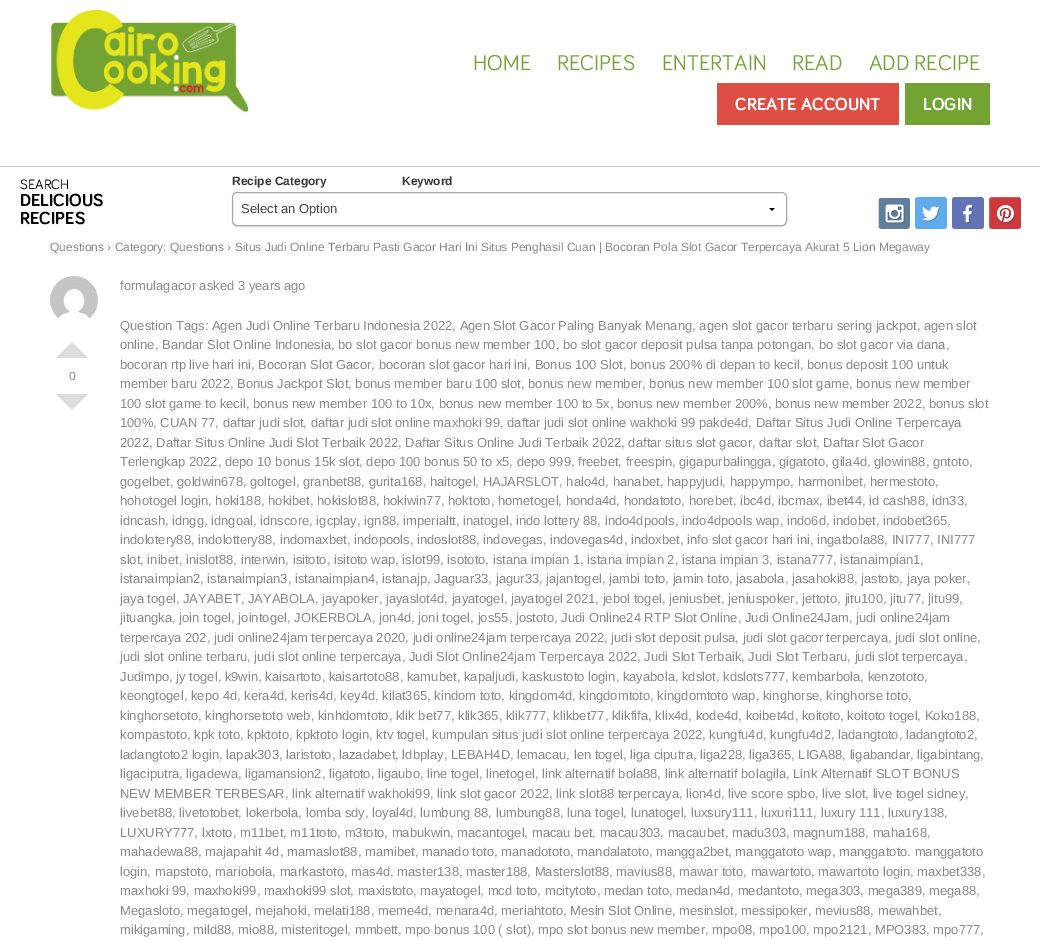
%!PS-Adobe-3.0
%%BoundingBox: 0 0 1040 940
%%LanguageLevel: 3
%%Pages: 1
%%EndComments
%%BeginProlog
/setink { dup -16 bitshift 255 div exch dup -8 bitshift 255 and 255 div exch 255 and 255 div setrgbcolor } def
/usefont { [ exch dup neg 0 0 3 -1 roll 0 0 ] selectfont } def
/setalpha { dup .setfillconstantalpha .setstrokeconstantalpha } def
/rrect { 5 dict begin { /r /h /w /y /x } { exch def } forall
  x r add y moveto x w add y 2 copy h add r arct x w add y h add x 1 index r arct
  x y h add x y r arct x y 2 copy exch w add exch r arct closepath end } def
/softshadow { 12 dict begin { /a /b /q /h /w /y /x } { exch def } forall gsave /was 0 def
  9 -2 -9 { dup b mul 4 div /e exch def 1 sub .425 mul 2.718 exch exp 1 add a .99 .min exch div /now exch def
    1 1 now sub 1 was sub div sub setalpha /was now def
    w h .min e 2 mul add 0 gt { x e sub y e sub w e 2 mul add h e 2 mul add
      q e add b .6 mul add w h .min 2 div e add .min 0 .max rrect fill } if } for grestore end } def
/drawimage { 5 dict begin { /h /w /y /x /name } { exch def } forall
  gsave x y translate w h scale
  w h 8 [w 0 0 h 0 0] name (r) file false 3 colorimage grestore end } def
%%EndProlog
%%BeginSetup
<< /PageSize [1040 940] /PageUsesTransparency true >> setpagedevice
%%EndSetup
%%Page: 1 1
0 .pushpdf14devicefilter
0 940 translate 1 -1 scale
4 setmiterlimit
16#FFFFFF setink
0 0 1040 940 rectfill
(img1.raw) 51 10 198 103 drawimage
/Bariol-Regular 22 usefont
16#73A333 setink
[
    [(HOME) 473 70]
    [(RECIPES) 557 70]
    [(ENTERTAIN) 662 70]
    [(READ) 792 70]
    [(ADD RECIPE) 869 70]
] { aload pop moveto show } forall
16#DD4F45 setink
717 83 182 42 rectfill
/Bariol-Bold 18 usefont
16#FFFFFF setink
735 110 moveto (CREATE ACCOUNT) show
16#73A333 setink
905 83 85 42 rectfill
16#FFFFFF setink
923 110 moveto (LOGIN) show
16#CCCCCC setink
0 166 1040 1 rectfill
/Bariol-Regular 14 usefont
16#000000 setink
20 189 moveto (SEARCH) show
/Bariol-Bold 18 usefont
20 206 moveto (DELICIOUS) show
20 224 moveto (RECIPES) show
/LiberationSans-Bold 12 usefont
16#363636 setink
232 185 moveto (Recipe Category) show
16#000000 setink
232 193 555 34 5 0.5 0.1 softshadow
16#FFFFFF setink
232.5 192.5 554 33 4.5 rrect gsave fill grestore
16#AAAAAA setink
stroke
/LiberationSans-Regular 13 usefont
16#444444 setink
241 213 moveto (Select an Option) show
(img2.raw) 769 208 6 3 drawimage
/LiberationSans-Bold 12 usefont
16#363636 setink
402 185 moveto (Keyword) show
(img3.raw) 878 198 32 31 drawimage
16#61ABEA setink
915 197 32 32 3 rrect fill
(img4.raw) 922 206 18 16 drawimage
16#6274B3 setink
952 197 32 32 3 rrect fill
(img5.raw) 963 204 10 20 drawimage
16#DA5753 setink
989 197 32 32 3 rrect fill
(img6.raw) 990 198 31 31 drawimage
/LiberationSans-Regular 12 usefont
16#898989 setink
50 251 moveto (Questions › Category: Questions › Situs Judi Online Terbaru Pasti Gacor Hari Ini Situs Penghasil Cuan | Bocoran Pola Slot Gacor Terpercaya Akurat 5 Lion Megaway) show
(img7.raw) 50 276 48 45 drawimage
/LiberationSans-Regular 13 usefont
120 290 moveto (formulagacor asked 3 years ago) show
16#DDDDDD setink
88 358 moveto 56 358 lineto 72 342 lineto closepath fill
/LiberationSans-Regular 12 usefont
16#898989 setink
69 380 moveto (0) show
16#DDDDDD setink
56 394 moveto 88 394 lineto 72 410 lineto closepath fill
/LiberationSans-Regular 13 usefont
16#898989 setink
[
    [(Question Tags: Agen Judi Online Terbaru Indonesia 2022, Agen Slot Gacor Paling Banyak Menang, agen slot gacor terbaru sering jackpot, agen slot) 120 330]
    [(online, Bandar Slot Online Indonesia, bo slot gacor bonus new member 100, bo slot gacor deposit pulsa tanpa potongan, bo slot gacor via dana,) 120 349]
    [(bocoran rtp live hari ini, Bocoran Slot Gacor, bocoran slot gacor hari ini, Bonus 100 Slot, bonus 200% di depan to kecil, bonus deposit 100 untuk) 120 369]
    [(member baru 2022, Bonus Jackpot Slot, bonus member baru 100 slot, bonus new member, bonus new member 100 slot game, bonus new member) 120 388]
    [(100 slot game to kecil, bonus new member 100 to 10x, bonus new member 100 to 5x, bonus new member 200%, bonus new member 2022, bonus slot) 120 408]
    [(100%, CUAN 77, daftar judi slot, daftar judi slot online maxhoki 99, daftar judi slot online wakhoki 99 pakde4d, Daftar Situs Judi Online Terpercaya) 120 427]
    [(2022, Daftar Situs Online Judi Slot Terbaik 2022, Daftar Situs Online Judi Terbaik 2022, daftar situs slot gacor, daftar slot, Daftar Slot Gacor) 120 447]
    [(Terlengkap 2022, depo 10 bonus 15k slot, depo 100 bonus 50 to x5, depo 999, freebet, freespin, gigapurbalingga, gigatoto, gila4d, glowin88, gntoto,) 120 466]
    [(gogelbet, goldwin678, goltogel, granbet88, gurita168, haitogel, HAJARSLOT, halo4d, hanabet, happyjudi, happympo, harmonibet, hermestoto,) 120 486]
    [(hohotogel login, hoki188, hokibet, hokislot88, hokiwin77, hoktoto, hometogel, honda4d, hondatoto, horebet, ibc4d, ibcmax, ibet44, id cash88, idn33,) 120 505]
    [(idncash, idngg, idngoal, idnscore, igcplay, ign88, imperialtt, inatogel, indo lottery 88, indo4dpools, indo4dpools wap, indo6d, indobet, indobet365,) 120 525]
    [(indolotery88, indolottery88, indomaxbet, indopools, indoslot88, indovegas, indovegas4d, indoxbet, info slot gacor hari ini, ingatbola88, INI777, INI777) 120 544]
    [(slot, inibet, inislot88, interwin, isitoto, isitoto wap, islot99, isototo, istana impian 1, istana impian 2, istana impian 3, istana777, istanaimpian1,) 120 564]
    [(istanaimpian2, istanaimpian3, istanaimpian4, istanajp, Jaguar33, jagur33, jajantogel, jambi toto, jamin toto, jasabola, jasahoki88, jastoto, jaya poker,) 120 583]
    [(jaya togel, JAYABET, JAYABOLA, jayapoker, jayaslot4d, jayatogel, jayatogel 2021, jebol togel, jeniusbet, jeniuspoker, jettoto, jitu100, jitu77, jitu99,) 120 603]
    [(jituangka, join togel, jointogel, JOKERBOLA, jon4d, joni togel, jos55, jostoto, Judi Online24 RTP Slot Online, Judi Online24Jam, judi online24jam) 120 622]
    [(terpercaya 202, judi online24jam terpercaya 2020, judi online24jam terpercaya 2022, judi slot deposit pulsa, judi slot gacor terpercaya, judi slot online,) 120 642]
    [(judi slot online terbaru, judi slot online terpercaya, Judi Slot Online24jam Terpercaya 2022, Judi Slot Terbaik, Judi Slot Terbaru, judi slot terpercaya,) 120 661]
    [(Judimpo, jy togel, k9win, kaisartoto, kaisartoto88, kamubet, kapaljudi, kaskustoto login, kayabola, kdslot, kdslots777, kembarbola, kenzototo,) 120 681]
    [(keongtogel, kepo 4d, kera4d, keris4d, key4d, kilat365, kindom toto, kingdom4d, kingdomtoto, kingdomtoto wap, kinghorse, kinghorse toto,) 120 700]
    [(kinghorsetoto, kinghorsetoto web, kinhdomtoto, klik bet77, klik365, klik777, klikbet77, klikfifa, klix4d, kode4d, koibet4d, koitoto, koitoto togel, Koko188,) 120 720]
    [(kompastoto, kpk toto, kpktoto, kpktoto login, ktv togel, kumpulan situs judi slot online terpercaya 2022, kungfu4d, kungfu4d2, ladangtoto, ladangtoto2,) 120 739]
    [(ladangtoto2 login, lapak303, laristoto, lazadabet, ldbplay, LEBAH4D, lemacau, len togel, liga ciputra, liga228, liga365, LIGA88, ligabandar, ligabintang,) 120 759]
    [(ligaciputra, ligadewa, ligamansion2, ligatoto, ligaubo, line togel, linetogel, link alternatif bola88, link alternatif bolagila, Link Alternatif SLOT BONUS) 120 778]
    [(NEW MEMBER TERBESAR, link alternatif wakhoki99, link slot gacor 2022, link slot88 terpercaya, lion4d, live score spbo, live slot, live togel sidney,) 120 798]
    [(livebet88, livetotobet, lokerbola, lomba sdy, loyal4d, lumbung 88, lumbung88, luna togel, lunatogel, luxsury111, luxuri111, luxury 111, luxury138,) 120 817]
    [(LUXURY777, lxtoto, m11bet, m11toto, m3toto, mabukwin, macantogel, macau bet, macau303, macaubet, madu303, magnum188, maha168,) 120 837]
    [(mahadewa88, majapahit 4d, mamaslot88, mamibet, manado toto, manadototo, mandalatoto, mangga2bet, manggatoto wap, manggatoto. manggatoto) 120 856]
    [(login, mapstoto, mariobola, markastoto, mas4d, master138, master188, Masterslot88, mavius88, mawar toto, mawartoto, mawartoto login, maxbet338,) 120 876]
    [(maxhoki 99, maxhoki99, maxhoki99 slot, maxistoto, mayatogel, mcd toto, mcitytoto, medan toto, medan4d, medantoto, mega303, mega389, mega88,) 120 895]
    [(Megasloto, megatogel, mejahoki, melati188, meme4d, menara4d, meriahtoto, Mesin Slot Online, mesinslot, messipoker, mevius88, mewahbet,) 120 915]
    [(mikigaming, mild88, mio88, misteritogel, mmbett, mpo bonus 100 \( slot\), mpo slot bonus new member, mpo08, mpo100, mpo2121, MPO383, mpo777,) 120 934]
] { aload pop moveto show } forall
.poppdf14devicefilter showpage
%%EOF
